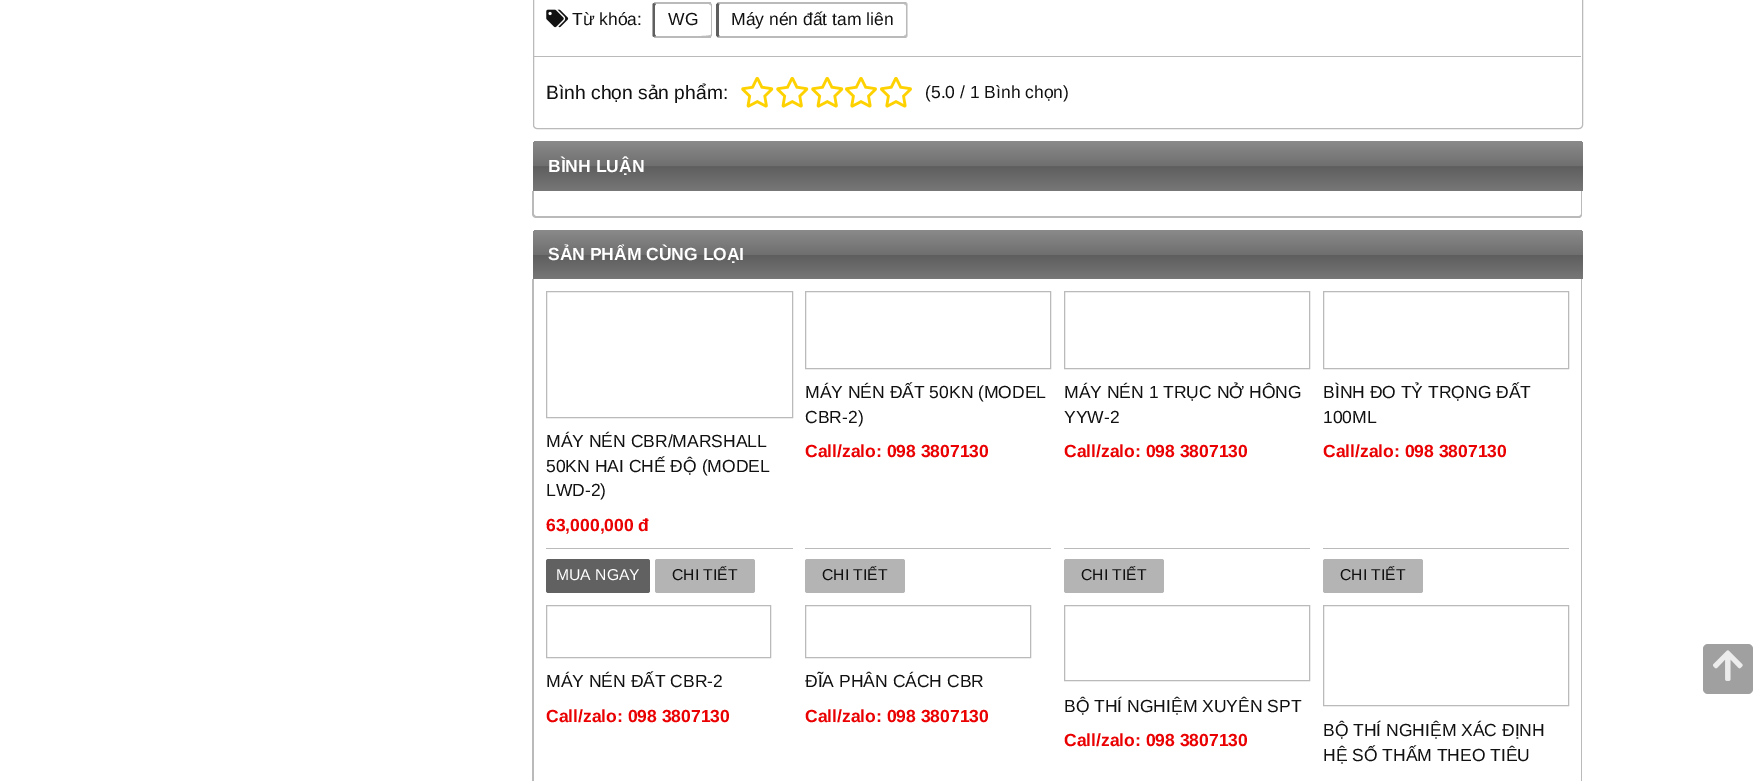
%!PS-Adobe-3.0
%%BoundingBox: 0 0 1764 781
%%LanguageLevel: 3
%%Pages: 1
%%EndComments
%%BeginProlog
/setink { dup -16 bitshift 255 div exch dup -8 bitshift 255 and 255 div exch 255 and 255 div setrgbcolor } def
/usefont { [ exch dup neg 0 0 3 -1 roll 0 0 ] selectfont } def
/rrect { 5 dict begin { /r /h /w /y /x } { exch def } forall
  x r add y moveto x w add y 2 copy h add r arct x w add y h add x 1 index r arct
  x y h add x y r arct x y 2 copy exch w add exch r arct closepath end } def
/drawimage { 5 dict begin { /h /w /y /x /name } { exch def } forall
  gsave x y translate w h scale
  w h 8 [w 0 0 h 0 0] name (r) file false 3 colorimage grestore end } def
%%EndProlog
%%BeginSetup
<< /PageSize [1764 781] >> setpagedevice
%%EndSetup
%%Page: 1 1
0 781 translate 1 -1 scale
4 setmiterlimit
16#FFFFFF setink
0 0 1764 781 rectfill
16#BABABA setink
533.5 -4.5 1049 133 3.5 rrect stroke
(img1.raw) 546 9 23 19 drawimage
/LiberationSans-Regular 17.5 usefont
16#111111 setink
572 25 moveto (Từ khóa:) show
16#BABABA setink
656 4 moveto 654 3 lineto 654 2 lineto 711 2 lineto 711 4 lineto 710 5 lineto 709 4 lineto closepath fill
711.5 3.5 moveto 712 4.5 712 5 712 6 curveto 712 34 lineto 712 35 712 35.5 711.5 36.5 curveto 710.5 35.5 lineto 711 34 lineto 711 6 lineto 710.5 4.5 lineto closepath fill
654 38 moveto 654 37 lineto 656 36 lineto 662 36 709 37 710 35 curveto 711 36 lineto 711 38 lineto closepath fill
16#5F5F5F setink
652.5 4 moveto 653.5 3 lineto 656 4 lineto 655 5.5 lineto 655 34.5 lineto 656 36 lineto 653.5 37 lineto 652.5 36 lineto closepath fill
16#111111 setink
668 25 moveto (WG) show
16#BABABA setink
720 4 moveto 717 3 lineto 718 2 lineto 906 2 lineto 907 3 lineto 905 5 lineto 904 4 lineto closepath fill
907.5 36 moveto 907 37 lineto 905.5 35.5 lineto 906 34 lineto 906 6 lineto 905.5 4.5 lineto 907 3 lineto 907.5 4 lineto closepath fill
718 38 moveto 717 37 lineto 719 36 lineto 904 36 lineto 905 35 lineto 907 37 lineto 906 38 lineto closepath fill
16#5F5F5F setink
716 4.5 moveto 717.5 3 lineto 719.5 4 lineto 718.5 4.5 719 10 719 10.5 curveto 719 35 lineto 719.5 36 lineto 717.5 37 lineto 716 35.5 lineto closepath fill
16#111111 setink
731 25 moveto (Máy nén đất tam liên) show
16#BABABA setink
534 56 1047 1 rectfill
/LiberationSans-Regular 19.25 usefont
16#111111 setink
546 99 moveto (Bình chọn sản phẩm:) show
(img2.raw) 741 77 33 31 drawimage
(img2.raw) 776 77 33 31 drawimage
(img2.raw) 811 77 33 31 drawimage
(img3.raw) 845 77 32 31 drawimage
(img3.raw) 880 77 32 31 drawimage
/LiberationSans-Regular 17.5 usefont
925 98 moveto (\(5.0 / 1 Bình chọn\)) show
gsave 537 141 moveto 1579 141 lineto 1581 141 1583 143 1583 145 curveto 1583 191 lineto 533 191 lineto 533 145 lineto 533 143 535 141 537 141 curveto closepath clip newpath
<< /ShadingType 2 /ColorSpace /DeviceRGB /Coords [1058 141 1058 191] /Extend [true true] /Function << /FunctionType 3 /Domain [0 1] /Functions [<< /FunctionType 2 /Domain [0 1] /C0 [0.541 0.541 0.541] /C1 [0.435 0.435 0.435] /N 1 >> << /FunctionType 2 /Domain [0 1] /C0 [0.435 0.435 0.435] /C1 [0.369 0.369 0.369] /N 1 >> << /FunctionType 2 /Domain [0 1] /C0 [0.369 0.369 0.369] /C1 [0.467 0.467 0.467] /N 1 >>] /Bounds [0.5 0.51] /Encode [0 1 0 1 0 1] >> >> shfill grestore
/LiberationSans-Bold 17.5 usefont
16#FFFFFF setink
548 172 moveto (BÌNH LUẬN) show
16#BABABA setink
532 191 moveto 1582 191 lineto 1582 214 lineto 1582 216 1581 218 1579 218 curveto 536 218 lineto 534 218 532 216 532 214 curveto closepath 534 191 moveto 1581 191 lineto 1581 214 lineto 1581 215 1580 216 1579 216 curveto 536 216 lineto 535 216 534 215 534 214 curveto closepath eofill
gsave 537 230 moveto 1579 230 lineto 1581 230 1583 232 1583 234 curveto 1583 279 lineto 533 279 lineto 533 234 lineto 533 232 535 230 537 230 curveto closepath clip newpath
<< /ShadingType 2 /ColorSpace /DeviceRGB /Coords [1058 230 1058 279] /Extend [true true] /Function << /FunctionType 3 /Domain [0 1] /Functions [<< /FunctionType 2 /Domain [0 1] /C0 [0.541 0.541 0.541] /C1 [0.435 0.435 0.435] /N 1 >> << /FunctionType 2 /Domain [0 1] /C0 [0.435 0.435 0.435] /C1 [0.369 0.369 0.369] /N 1 >> << /FunctionType 2 /Domain [0 1] /C0 [0.369 0.369 0.369] /C1 [0.467 0.467 0.467] /N 1 >>] /Bounds [0.5 0.51] /Encode [0 1 0 1 0 1] >> >> shfill grestore
16#FFFFFF setink
548 260 moveto (SẢN PHẨM CÙNG LOẠI) show
16#BABABA setink
532 279 moveto 1582 279 lineto 1582 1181 lineto 1582 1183 1581 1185 1579 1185 curveto 536 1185 lineto 534 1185 532 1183 532 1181 curveto closepath 534 279 moveto 1581 279 lineto 1581 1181 lineto 1581 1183 1580 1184 1579 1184 curveto 536 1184 lineto 535 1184 534 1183 534 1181 curveto closepath eofill
546.5 291.5 246 126 rectstroke
/LiberationSans-Regular 17.5 usefont
16#111111 setink
[
    [(MÁY NÉN CBR/MARSHALL) 546 447]
    [(50KN HAI CHẾ ĐỘ \(MODEL) 546 472]
    [(LWD-2\)) 546 496]
] { aload pop moveto show } forall
/LiberationSans-Bold 17.5 usefont
16#EA0000 setink
546 531 moveto (63,000,000 đ) show
16#BABABA setink
546 548 247 1 rectfill
16#616161 setink
546 559 104 34 2.5 rrect fill
/LiberationSans-Regular 15.75 usefont
16#FFFFFF setink
556 580 moveto (MUA NGAY) show
16#B4B4B4 setink
655 559 100 34 2.5 rrect fill
16#111111 setink
672 580 moveto (CHI TIẾT) show
16#BABABA setink
805.5 291.5 245 77 rectstroke
/LiberationSans-Regular 17.5 usefont
16#111111 setink
805 398 moveto (MÁY NÉN ĐẤT 50KN \(MODEL) show
805 423 moveto (CBR-2\)) show
/LiberationSans-Bold 17.5 usefont
16#EA0000 setink
805 457 moveto (Call/zalo: 098 3807130) show
16#BABABA setink
805 548 246 1 rectfill
16#B4B4B4 setink
805 559 100 34 2.5 rrect fill
/LiberationSans-Regular 15.75 usefont
16#111111 setink
822 580 moveto (CHI TIẾT) show
16#BABABA setink
1064.5 291.5 245 77 rectstroke
/LiberationSans-Regular 17.5 usefont
16#111111 setink
1064 398 moveto (MÁY NÉN 1 TRỤC NỞ HÔNG) show
1064 423 moveto (YYW-2) show
/LiberationSans-Bold 17.5 usefont
16#EA0000 setink
1064 457 moveto (Call/zalo: 098 3807130) show
16#BABABA setink
1064 548 246 1 rectfill
16#B4B4B4 setink
1064 559 100 34 2.5 rrect fill
/LiberationSans-Regular 15.75 usefont
16#111111 setink
1081 580 moveto (CHI TIẾT) show
16#BABABA setink
1323.5 291.5 245 77 rectstroke
/LiberationSans-Regular 17.5 usefont
16#111111 setink
1323 398 moveto (BÌNH ĐO TỶ TRỌNG ĐẤT) show
1323 423 moveto (100ML) show
/LiberationSans-Bold 17.5 usefont
16#EA0000 setink
1323 457 moveto (Call/zalo: 098 3807130) show
16#BABABA setink
1323 548 246 1 rectfill
16#B4B4B4 setink
1323 559 100 34 2.5 rrect fill
/LiberationSans-Regular 15.75 usefont
16#111111 setink
1340 580 moveto (CHI TIẾT) show
16#BABABA setink
546.5 605.5 224 52 rectstroke
/LiberationSans-Regular 17.5 usefont
16#111111 setink
546 687 moveto (MÁY NÉN ĐẤT CBR-2) show
/LiberationSans-Bold 17.5 usefont
16#EA0000 setink
546 722 moveto (Call/zalo: 098 3807130) show
16#BABABA setink
805.5 605.5 225 52 rectstroke
/LiberationSans-Regular 17.5 usefont
16#111111 setink
805 687 moveto (ĐĨA PHÂN CÁCH CBR) show
/LiberationSans-Bold 17.5 usefont
16#EA0000 setink
805 722 moveto (Call/zalo: 098 3807130) show
16#BABABA setink
1064.5 605.5 245 75 rectstroke
/LiberationSans-Regular 17.5 usefont
16#111111 setink
1064 712 moveto (BỘ THÍ NGHIỆM XUYÊN SPT) show
/LiberationSans-Bold 17.5 usefont
16#EA0000 setink
1064 746 moveto (Call/zalo: 098 3807130) show
16#BABABA setink
1323.5 605.5 245 100 rectstroke
/LiberationSans-Regular 17.5 usefont
16#111111 setink
1323 736 moveto (BỘ THÍ NGHIỆM XÁC ĐỊNH) show
1323 761 moveto (HỆ SỐ THẤM THEO TIÊU) show
16#A0A0A0 setink
1703 644 50 50 5 rrect fill
(img4.raw) 1713 650 30 31 drawimage
showpage
%%EOF
